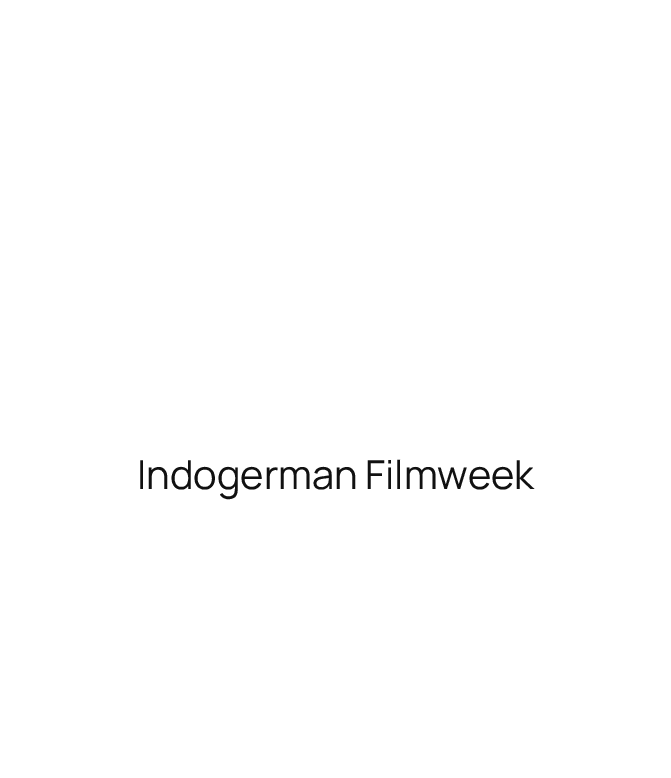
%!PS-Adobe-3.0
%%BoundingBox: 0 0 671 778
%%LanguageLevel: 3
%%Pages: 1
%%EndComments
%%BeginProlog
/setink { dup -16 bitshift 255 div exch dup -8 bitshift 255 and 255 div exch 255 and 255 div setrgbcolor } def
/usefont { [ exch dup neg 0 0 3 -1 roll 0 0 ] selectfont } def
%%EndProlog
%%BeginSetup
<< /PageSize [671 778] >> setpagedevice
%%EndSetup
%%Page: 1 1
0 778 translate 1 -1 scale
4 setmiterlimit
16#FFFFFF setink
0 0 671 778 rectfill
/Manrope-Regular 39.9 usefont
16#111111 setink
137 489 moveto -0.1 0 (Indogerman Filmweek) ashow
showpage
%%EOF
